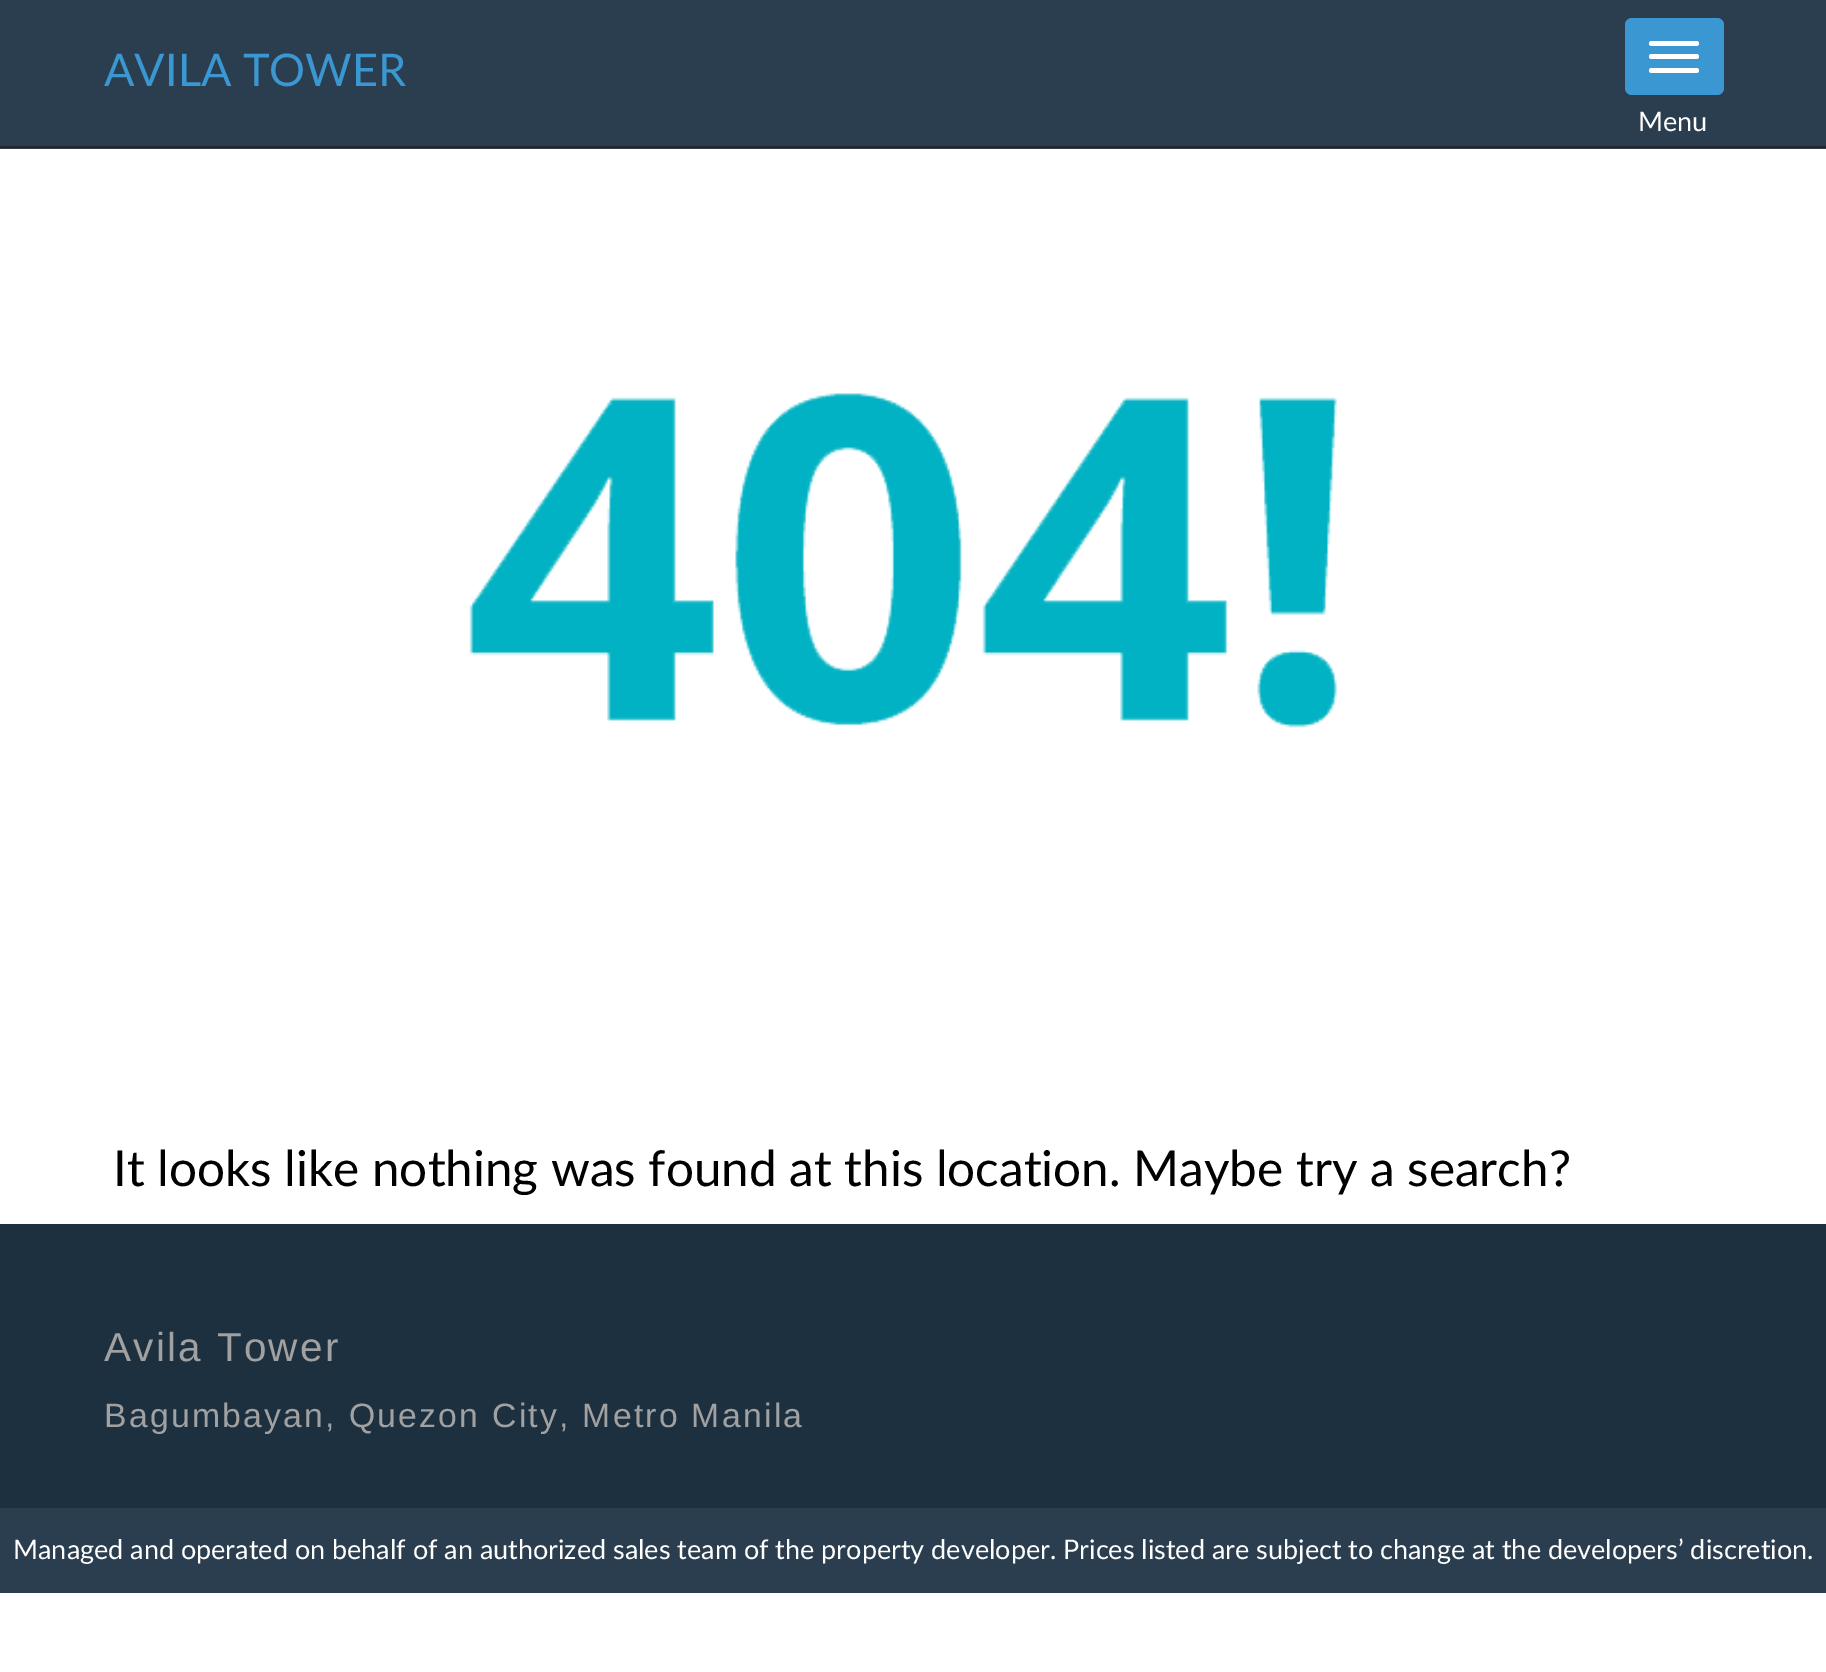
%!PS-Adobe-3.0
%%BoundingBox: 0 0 1826 1672
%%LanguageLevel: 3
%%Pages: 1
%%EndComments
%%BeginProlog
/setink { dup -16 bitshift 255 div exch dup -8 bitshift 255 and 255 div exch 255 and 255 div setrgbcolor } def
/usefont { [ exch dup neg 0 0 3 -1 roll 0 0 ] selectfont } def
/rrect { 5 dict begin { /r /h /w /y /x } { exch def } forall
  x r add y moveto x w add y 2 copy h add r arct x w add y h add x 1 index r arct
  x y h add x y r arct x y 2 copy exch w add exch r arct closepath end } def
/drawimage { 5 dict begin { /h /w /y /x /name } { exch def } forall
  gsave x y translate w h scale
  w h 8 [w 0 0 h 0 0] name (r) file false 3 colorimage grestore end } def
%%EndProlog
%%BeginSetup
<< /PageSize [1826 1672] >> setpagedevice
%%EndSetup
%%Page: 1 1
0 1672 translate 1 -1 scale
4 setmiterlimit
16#FFFFFF setink
0 0 1826 1672 rectfill
16#2B3E4F setink
0 0 1826 149 rectfill
16#282428 setink
0 146 1826 2 rectfill
/Lato-Regular 45 usefont
16#3B97D1 setink
104 86 moveto (AVILA TOWER) show
1625 18 99 77 7 rrect fill
16#FFFFFF setink
1649 41 50 5 2.5 rrect fill
1649 54 50 5 2.5 rrect fill
1649 68 50 5 2.5 rrect fill
/Lato-Regular 27 usefont
1638 131 moveto (Menu) show
(img1.raw) 469 393 869 335 drawimage
/Lato-Regular 49.5 usefont
16#000000 setink
113 1186 moveto (It looks like nothing was found at this location. Maybe try a search?) show
16#1D3040 setink
0 1224 1826 284 rectfill
/LiberationSans-Regular 40.5 usefont
16#A1A1A1 setink
104 1361 moveto 2.25 0 (Avila Tower) ashow
/LiberationSans-Regular 33.75 usefont
104 1427 moveto 2.25 0 (Bagumbayan, Quezon City, Metro Manila) ashow
16#2B3E4F setink
0 1508 1826 85 rectfill
/Lato-Regular 27 usefont
16#FFFFFF setink
13 1559 moveto (Managed and operated on behalf of an authorized sales team of the property developer. Prices listed are subject to change at the developers’ discretion.) show
showpage
%%EOF
